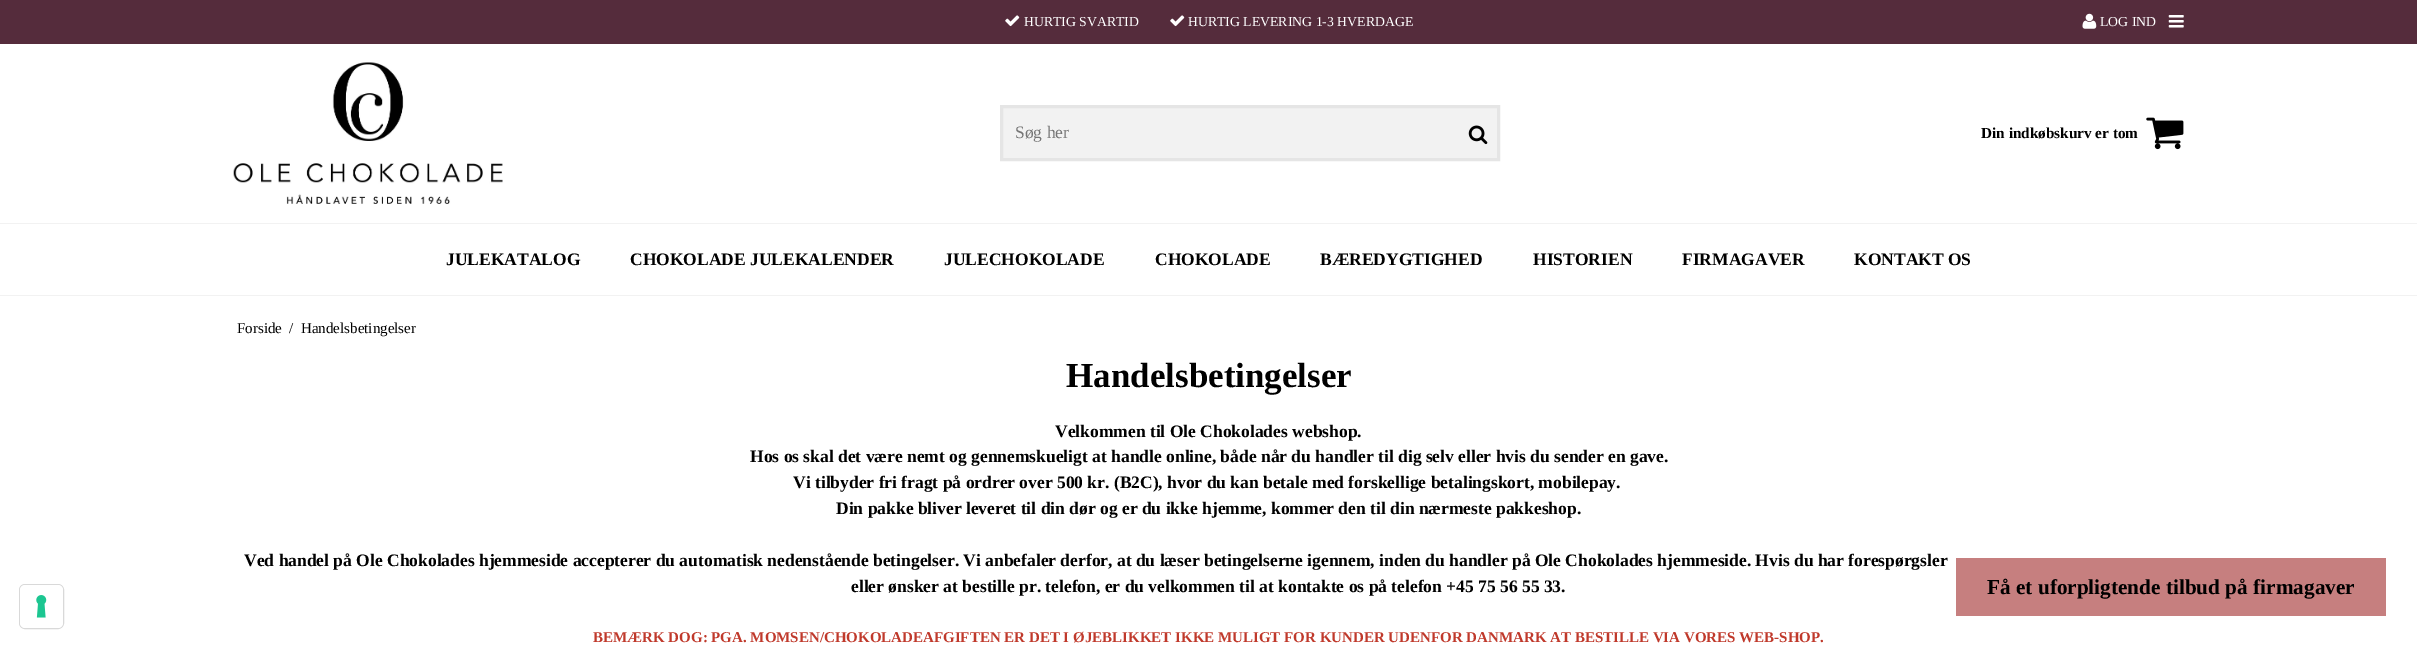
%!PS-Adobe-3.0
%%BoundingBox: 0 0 2417 647
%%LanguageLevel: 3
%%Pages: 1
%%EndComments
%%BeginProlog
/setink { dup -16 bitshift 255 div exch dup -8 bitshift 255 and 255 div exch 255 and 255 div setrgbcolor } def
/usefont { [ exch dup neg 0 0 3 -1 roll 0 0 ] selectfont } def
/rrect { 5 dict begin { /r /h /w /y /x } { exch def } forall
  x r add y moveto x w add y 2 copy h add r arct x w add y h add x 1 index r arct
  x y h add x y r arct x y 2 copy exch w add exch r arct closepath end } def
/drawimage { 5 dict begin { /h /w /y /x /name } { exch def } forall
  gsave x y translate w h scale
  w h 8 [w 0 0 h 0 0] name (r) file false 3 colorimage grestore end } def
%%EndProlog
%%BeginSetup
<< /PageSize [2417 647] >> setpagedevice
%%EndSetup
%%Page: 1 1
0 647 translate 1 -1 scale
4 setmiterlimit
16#FFFFFF setink
0 0 2417 647 rectfill
16#552C3C setink
0 0 2417 44 rectfill
(img1.raw) 1005 15 15 12 drawimage
/LiberationSerif-Regular 13.75 usefont
16#FFFFFF setink
1024 26 moveto (HURTIG SVARTID) show
(img1.raw) 1170 15 15 12 drawimage
1188 26 moveto (HURTIG LEVERING 1-3 HVERDAGE) show
(img2.raw) 2082 13 15 16 drawimage
2100 26 moveto (LOG IND) show
(img3.raw) 2168 15 16 13 drawimage
(img4.raw) 233 62 270 142 drawimage
16#F2F2F2 setink
1001.5 106.5 moveto 1498.5 106.5 lineto 1498.5 159.5 lineto 1001.5 159.5 lineto closepath gsave fill grestore
16#E5E5E5 setink
3 setlinewidth
stroke
/LiberationSerif-Regular 17.5 usefont
16#757575 setink
1015 138 moveto (Søg her) show
(img5.raw) 1468 125 20 20 drawimage
/LiberationSerif-Bold 15.25 usefont
16#000000 setink
1981 138 moveto (Din indkøbskurv er tom) show
(img6.raw) 2146 117 38 33 drawimage
16#F2F2F2 setink
0 223 2417 1 rectfill
0 295 2417 1 rectfill
/LiberationSerif-Bold 17.5 usefont
16#000000 setink
[
    [(JULEKATALOG) 446 265]
    [(CHOKOLADE JULEKALENDER) 630 265]
    [(JULECHOKOLADE) 944 265]
    [(CHOKOLADE) 1155 265]
    [(BÆREDYGTIGHED) 1320 265]
    [(HISTORIEN) 1533 265]
    [(FIRMAGAVER) 1682 265]
    [(KONTAKT OS) 1854 265]
] { aload pop moveto show } forall
/LiberationSerif-Regular 15 usefont
[
    [(Forside) 237 333]
    [(/) 289 333]
    [(Handelsbetingelser) 301 333]
] { aload pop moveto show } forall
16#D9D9D9 setink
1 setlinewidth
19.5 584.5 44 44 5.5 rrect stroke
16#FFFFFF setink
20 585 43 43 5 rrect fill
(img7.raw) 36 595 11 23 drawimage
/LiberationSerif-Bold 35 usefont
16#000000 setink
1066 387 moveto (Handelsbetingelser) show
/LiberationSerif-Bold 17.5 usefont
[
    [(Velkommen til Ole Chokolades webshop.) 1055 437]
    [(Hos os skal det være nemt og gennemskueligt at handle online, både når du handler til dig selv eller hvis du sender en gave.) 750 462]
    [(Vi tilbyder fri fragt på ordrer over 500 kr. \(B2C\), hvor du kan betale med forskellige betalingskort, mobilepay.) 793 488]
    [(Din pakke bliver leveret til din dør og er du ikke hjemme, kommer den til din nærmeste pakkeshop.) 836 514]
    [(Ved handel på Ole Chokolades hjemmeside accepterer du automatisk nedenstående betingelser. Vi anbefaler derfor, at du læser betingelserne igennem, inden du handler på Ole Chokolades hjemmeside. Hvis du har forespørgsler) 244 566]
    [(eller ønsker at bestille pr. telefon, er du velkommen til at kontakte os på telefon +45 75 56 55 33.) 851 592]
] { aload pop moveto show } forall
/LiberationSerif-Bold 15 usefont
16#C0392B setink
593 642 moveto (BEMÆRK DOG: PGA. MOMSEN/CHOKOLADEAFGIFTEN ER DET I ØJEBLIKKET IKKE MULIGT FOR KUNDER UDENFOR DANMARK AT BESTILLE VIA VORES WEB-SHOP.) show
16#C67F7F setink
1956 558 430 58 rectfill
/LiberationSerif-Bold 21.25 usefont
16#000000 setink
1987 594 moveto (Få et uforpligtende tilbud på firmagaver) show
showpage
%%EOF
